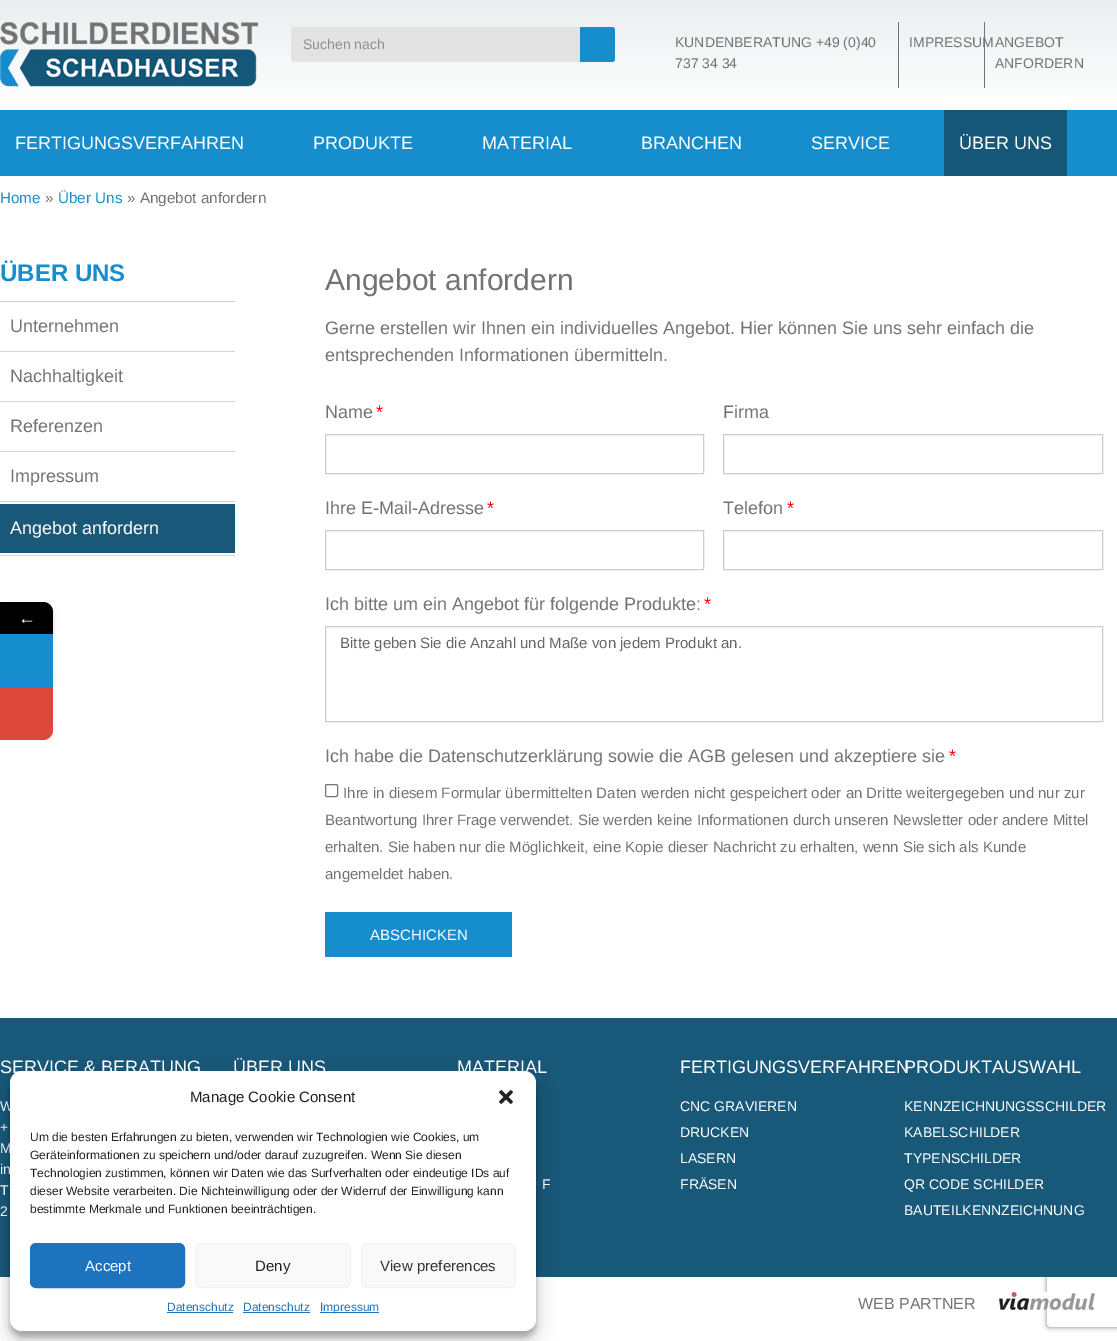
%!PS-Adobe-3.0
%%BoundingBox: 0 0 1117 1341
%%LanguageLevel: 3
%%Pages: 1
%%EndComments
%%BeginProlog
/setink { dup -16 bitshift 255 div exch dup -8 bitshift 255 and 255 div exch 255 and 255 div setrgbcolor } def
/usefont { [ exch dup neg 0 0 3 -1 roll 0 0 ] selectfont } def
/setalpha { dup .setfillconstantalpha .setstrokeconstantalpha } def
/rrect { 5 dict begin { /r /h /w /y /x } { exch def } forall
  x r add y moveto x w add y 2 copy h add r arct x w add y h add x 1 index r arct
  x y h add x y r arct x y 2 copy exch w add exch r arct closepath end } def
/softshadow { 12 dict begin { /a /b /q /h /w /y /x } { exch def } forall gsave /was 0 def
  9 -2 -9 { dup b mul 4 div /e exch def 1 sub .425 mul 2.718 exch exp 1 add a .99 .min exch div /now exch def
    1 1 now sub 1 was sub div sub setalpha /was now def
    w h .min e 2 mul add 0 gt { x e sub y e sub w e 2 mul add h e 2 mul add
      q e add b .6 mul add w h .min 2 div e add .min 0 .max rrect fill } if } for grestore end } def
/drawimage { 5 dict begin { /h /w /y /x /name } { exch def } forall
  gsave x y translate w h scale
  w h 8 [w 0 0 h 0 0] name (r) file false 3 colorimage grestore end } def
%%EndProlog
%%BeginSetup
<< /PageSize [1117 1341] /PageUsesTransparency true >> setpagedevice
%%EndSetup
%%Page: 1 1
0 .pushpdf14devicefilter
0 1341 translate 1 -1 scale
4 setmiterlimit
16#FFFFFF setink
0 0 1117 1341 rectfill
gsave 0 0 moveto 1117 0 lineto 1117 96 lineto 0 96 lineto closepath clip newpath
<< /ShadingType 2 /ColorSpace /DeviceRGB /Coords [559 0 559 110] /Extend [true true] /Function << /FunctionType 2 /Domain [0 1] /C0 [0.922 0.933 0.941] /C1 [1 1 1] /N 1 >> >> shfill grestore
(img1.raw) 0 22 258 65 drawimage
16#E3E3E3 setink
291 27 324 35 3 rrect fill
/LiberationSans-Regular 14 usefont
16#8E9092 setink
303 49 moveto (Suchen nach) show
16#168DCD setink
580 27 moveto 612 27 lineto 613.5 27 615 28.5 615 30 curveto 615 59 lineto 615 60.5 613.5 62 612 62 curveto 580 62 lineto closepath fill
16#727372 setink
675 47 moveto (KUNDENBERATUNG +49 \(0\)40) show
675 68 moveto (737 34 34) show
898 22 1 66 rectfill
909 47 moveto (IMPRESSUM) show
984 22 1 66 rectfill
995 47 moveto (ANGEBOT) show
995 68 moveto (ANFORDERN) show
16#168DCD setink
0 110 1117 66 rectfill
/LiberationSans-Regular 18 usefont
16#FFFFFF setink
[
    [(FERTIGUNGSVERFAHREN) 15 149]
    [(PRODUKTE) 313 149]
    [(MATERIAL) 482 149]
    [(BRANCHEN) 641 149]
    [(SERVICE) 811 149]
] { aload pop moveto show } forall
16#155778 setink
944 110 123 66 rectfill
16#FFFFFF setink
959 149 moveto (ÜBER UNS) show
/LiberationSans-Regular 15.25 usefont
16#168DCD setink
0 203 moveto (Home) show
16#727372 setink
45 203 moveto (») show
16#168DCD setink
58 203 moveto (Über Uns) show
16#727372 setink
127 203 moveto (» Angebot anfordern) show
/LiberationSans-Bold 24 usefont
16#168DCD setink
0 281 moveto (ÜBER UNS) show
16#D4D4D4 setink
0 301 235 1 rectfill
/LiberationSans-Regular 18 usefont
16#727372 setink
10 332 moveto (Unternehmen) show
16#D4D4D4 setink
0 351 235 1 rectfill
16#727372 setink
10 382 moveto (Nachhaltigkeit) show
16#D4D4D4 setink
0 401 235 1 rectfill
16#727372 setink
10 432 moveto (Referenzen) show
16#D4D4D4 setink
0 451 235 1 rectfill
16#727372 setink
10 482 moveto (Impressum) show
[
    [0 501 235 1 16#D4D4D4]
    [0 555 235 1 16#D4D4D4]
    [0 504 235 49 16#195879]
] { aload pop setink rectfill } forall
16#FFFFFF setink
10 534 moveto (Angebot anfordern) show
/LiberationSans-Regular 30 usefont
16#727372 setink
325 290 moveto (Angebot anfordern) show
/LiberationSans-Regular 18 usefont
[
    [(Gerne erstellen wir Ihnen ein individuelles Angebot. Hier können Sie uns sehr einfach die) 325 334]
    [(entsprechenden Informationen übermitteln.) 325 361]
    [(Name) 325 418]
] { aload pop moveto show } forall
16#FF0000 setink
376 418 moveto (*) show
16#CBCBCB setink
325.5 434.5 378 39 rectstroke
16#727372 setink
723 418 moveto (Firma) show
16#CBCBCB setink
723.5 434.5 379 39 rectstroke
16#727372 setink
325 514 moveto (Ihre E-Mail-Adresse) show
16#FF0000 setink
487 514 moveto (*) show
16#CBCBCB setink
325.5 530.5 378 39 rectstroke
16#727372 setink
723 514 moveto (Telefon) show
16#FF0000 setink
787 514 moveto (*) show
16#CBCBCB setink
723.5 530.5 379 39 rectstroke
16#727372 setink
325 610 moveto (Ich bitte um ein Angebot für folgende Produkte:) show
16#FF0000 setink
704 610 moveto (*) show
16#CBCBCB setink
325.5 626.5 777 95 rectstroke
/LiberationSans-Regular 15 usefont
16#666666 setink
340 648 moveto (Bitte geben Sie die Anzahl und Maße von jedem Produkt an.) show
/LiberationSans-Regular 18 usefont
16#727372 setink
325 762 moveto (Ich habe die Datenschutzerklärung sowie die AGB gelesen und akzeptiere sie) show
16#FF0000 setink
949 762 moveto (*) show
16#767676 setink
325.5 784.5 12 12 1.5 rrect stroke
/LiberationSans-Regular 15 usefont
16#727372 setink
[
    [(Ihre in diesem Formular übermittelten Daten werden nicht gespeichert oder an Dritte weitergegeben und nur zur) 343 798]
    [(Beantwortung Ihrer Frage verwendet. Sie werden keine Informationen durch unseren Newsletter oder andere Mittel) 325 825]
    [(erhalten. Sie haben nur die Möglichkeit, eine Kopie dieser Nachricht zu erhalten, wenn Sie sich als Kunde) 325 852]
    [(angemeldet haben.) 325 879]
] { aload pop moveto show } forall
16#168DCD setink
325 912 187 45 rectfill
16#FFFFFF setink
370 940 moveto (ABSCHICKEN) show
gsave
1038 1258 moveto 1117 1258 lineto 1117 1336 lineto 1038 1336 lineto closepath 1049 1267 moveto 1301 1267 lineto 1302 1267 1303 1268 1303 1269 curveto 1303 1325 lineto 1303 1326 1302 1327 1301 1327 curveto 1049 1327 lineto 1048 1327 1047 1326 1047 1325 curveto 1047 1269 lineto 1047 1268 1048 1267 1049 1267 curveto closepath eoclip newpath
16#808080 setink
1047 1267 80 60 2 2.5 1 softshadow
grestore
16#000000 setink
0 605 53 32 10 3 0.16 softshadow
0 602 moveto 43 602 lineto 48.5 602 53 606.5 53 612 curveto 53 634 lineto 0 634 lineto closepath fill
/LiberationSerif-Regular 18 usefont
16#FFFFFF setink
18 624 moveto (←) show
16#168DCD setink
0 634 53 53 rectfill
16#DC483C setink
0 687 moveto 53 687 lineto 53 730 lineto 53 735.5 48.5 740 43 740 curveto 0 740 lineto closepath fill
16#185879 setink
0 1018 1117 259 rectfill
/LiberationSans-Regular 18 usefont
16#FFFFFF setink
0 1073 moveto (SERVICE & BERATUNG) show
/LiberationSans-Regular 14 usefont
[
    [(W) 0 1111]
    [(+) 0 1132]
    [(M) 0 1153]
    [(in) 0 1174]
    [(T) 0 1195]
    [(2) 0 1216]
] { aload pop moveto show } forall
/LiberationSans-Regular 18 usefont
233 1073 moveto (ÜBER UNS) show
457 1073 moveto (MATERIAL) show
/LiberationSans-Regular 14 usefont
542 1189 moveto (F) show
/LiberationSans-Regular 18 usefont
680 1073 moveto (FERTIGUNGSVERFAHREN) show
/LiberationSans-Regular 14 usefont
[
    [(CNC GRAVIEREN) 680 1111]
    [(DRUCKEN) 680 1137]
    [(LASERN) 680 1163]
    [(FRÄSEN) 680 1189]
] { aload pop moveto show } forall
/LiberationSans-Regular 18 usefont
904 1073 moveto (PRODUKTAUSWAHL) show
/LiberationSans-Regular 14 usefont
[
    [(KENNZEICHNUNGSSCHILDER) 904 1111]
    [(KABELSCHILDER) 904 1137]
    [(TYPENSCHILDER) 904 1163]
    [(QR CODE SCHILDER) 904 1189]
    [(BAUTEILKENNZEICHNUNG) 904 1215]
] { aload pop moveto show } forall
/LiberationSans-Regular 16 usefont
16#727372 setink
858 1309 moveto (WEB PARTNER) show
(img2.raw) 999 1292 96 18 drawimage
16#000000 setink
10 1077 526 260 12 3 0.23 softshadow
10 1081 526 260 12 10 0.19 softshadow
16#FFFFFF setink
10 1071 526 260 12 rrect fill
/LiberationSans-Regular 15 usefont
16#222222 setink
190 1102 moveto (Manage Cookie Consent) show
(img3.raw) 499 1090 14 14 drawimage
/LiberationSans-Regular 12 usefont
[
    [(Um die besten Erfahrungen zu bieten, verwenden wir Technologien wie Cookies, um) 30 1141]
    [(Geräteinformationen zu speichern und/oder darauf zuzugreifen. Wenn Sie diesen) 30 1159]
    [(Technologien zustimmen, können wir Daten wie das Surfverhalten oder eindeutige IDs auf) 30 1177]
    [(dieser Website verarbeiten. Die Nichteinwilligung oder der Widerruf der Einwilligung kann) 30 1195]
    [(bestimmte Merkmale und Funktionen beeinträchtigen.) 30 1213]
] { aload pop moveto show } forall
16#1E73BE setink
30.5 1243.5 154 44 5.5 rrect gsave fill grestore
stroke
/LiberationSans-Regular 15 usefont
16#FFFFFF setink
85 1271 moveto (Accept) show
16#F9F9F9 setink
195.5 1243.5 155 44 5.5 rrect gsave fill grestore
16#F2F2F2 setink
stroke
16#222222 setink
255 1271 moveto (Deny) show
16#F9F9F9 setink
361.5 1243.5 154 44 5.5 rrect gsave fill grestore
16#F2F2F2 setink
stroke
16#333333 setink
380 1271 moveto (View preferences) show
/LiberationSans-Regular 12 usefont
16#1E73BE setink
167 1311 moveto (Datenschutz) show
167 1312 66 1 rectfill
243 1311 moveto (Datenschutz) show
243 1312 67 1 rectfill
320 1312 59 1 rectfill
320 1311 moveto (Impressum) show
.poppdf14devicefilter showpage
%%EOF
